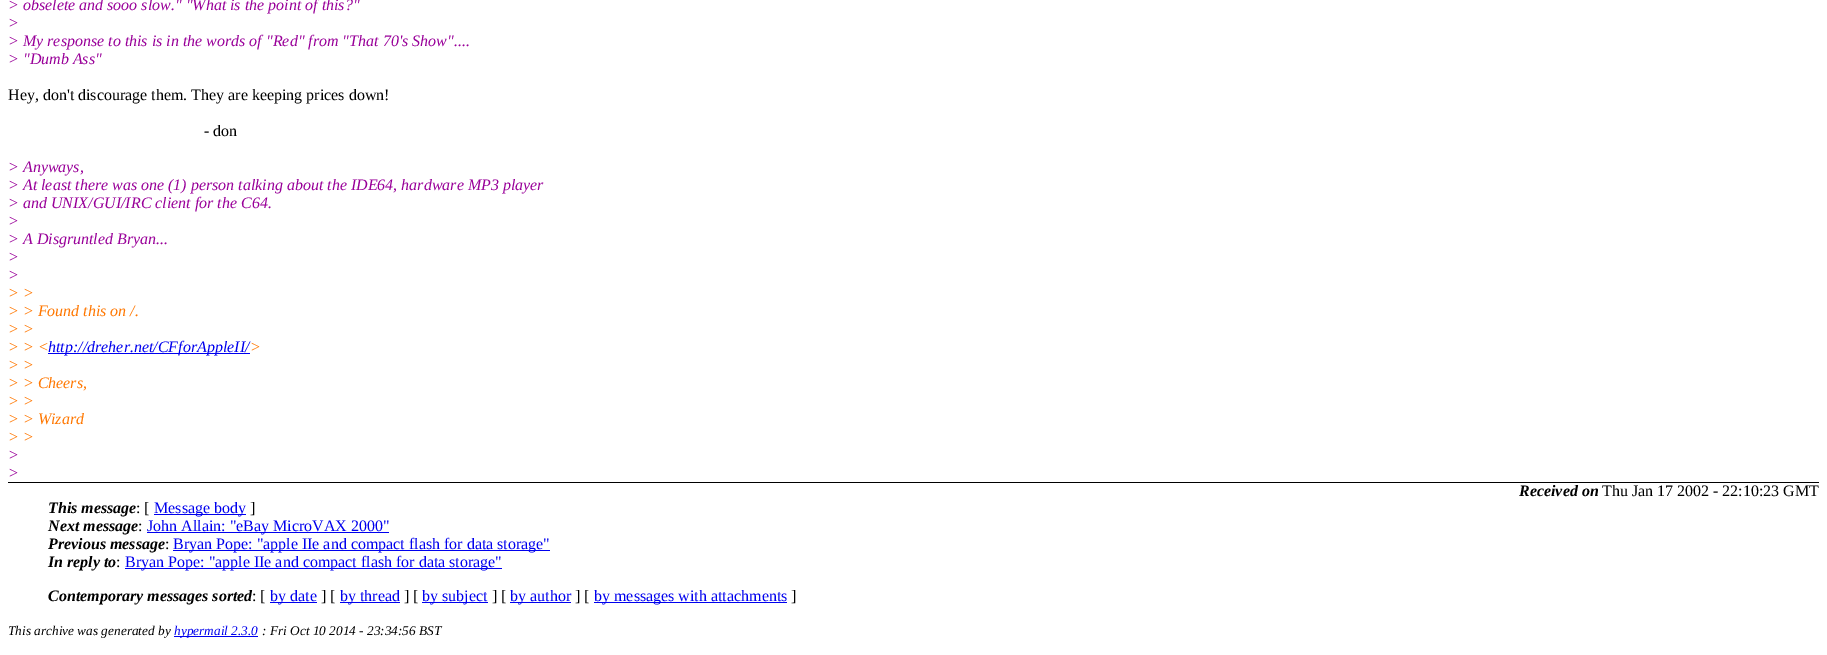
%!PS-Adobe-3.0
%%BoundingBox: 0 0 1827 655
%%LanguageLevel: 3
%%Pages: 1
%%EndComments
%%BeginProlog
/setink { dup -16 bitshift 255 div exch dup -8 bitshift 255 and 255 div exch 255 and 255 div setrgbcolor } def
/usefont { [ exch dup neg 0 0 3 -1 roll 0 0 ] selectfont } def
%%EndProlog
%%BeginSetup
<< /PageSize [1827 655] >> setpagedevice
%%EndSetup
%%Page: 1 1
0 655 translate 1 -1 scale
4 setmiterlimit
16#FFFFFF setink
0 0 1827 655 rectfill
/LiberationSerif-Italic 16 usefont
16#990099 setink
[
    [(> obselete and sooo slow." "What is the point of this?") 8 10]
    [(>) 8 28]
    [(> My response to this is in the words of "Red" from "That 70's Show"....) 8 46]
    [(> "Dumb Ass") 8 64]
] { aload pop moveto show } forall
/LiberationSerif-Regular 16 usefont
16#000000 setink
8 100 moveto (Hey, don't discourage them. They are keeping prices down!) show
204 136 moveto (- don) show
/LiberationSerif-Italic 16 usefont
16#990099 setink
[
    [(> Anyways,) 8 172]
    [(> At least there was one \(1\) person talking about the IDE64, hardware MP3 player) 8 190]
    [(> and UNIX/GUI/IRC client for the C64.) 8 208]
    [(>) 8 226]
    [(> A Disgruntled Bryan...) 8 244]
    [(>) 8 262]
    [(>) 8 280]
] { aload pop moveto show } forall
16#FF7700 setink
[
    [(> >) 8 298]
    [(> > Found this on /.) 8 316]
    [(> >) 8 334]
    [(> > <) 8 352]
] { aload pop moveto show } forall
16#0000EE setink
48 353 202 1 rectfill
48 352 moveto (http://dreher.net/CFforAppleII/) show
16#FF7700 setink
[
    [(>) 250 352]
    [(> >) 8 370]
    [(> > Cheers,) 8 388]
    [(> >) 8 406]
    [(> > Wizard) 8 424]
    [(> >) 8 442]
] { aload pop moveto show } forall
16#990099 setink
8 460 moveto (>) show
8 478 moveto (>) show
/LiberationSerif-BoldItalic 16 usefont
16#000000 setink
1519 496 moveto (Received on) show
/LiberationSerif-Regular 16 usefont
1602 496 moveto (Thu Jan 17 2002 - 22:10:23 GMT) show
8 482 1811 1 rectfill
/LiberationSerif-BoldItalic 16 usefont
48 513 moveto (This message) show
/LiberationSerif-Regular 16 usefont
136 513 moveto (: [) show
16#0000EE setink
154 514 92 1 rectfill
154 513 moveto (Message body) show
16#000000 setink
250 513 moveto (]) show
/LiberationSerif-BoldItalic 16 usefont
48 531 moveto (Next message) show
/LiberationSerif-Regular 16 usefont
138 531 moveto (:) show
16#0000EE setink
147 532 242 1 rectfill
147 531 moveto (John Allain: "eBay MicroVAX 2000") show
/LiberationSerif-BoldItalic 16 usefont
16#000000 setink
48 549 moveto (Previous message) show
/LiberationSerif-Regular 16 usefont
165 549 moveto (:) show
16#0000EE setink
173 550 377 1 rectfill
173 549 moveto (Bryan Pope: "apple IIe and compact flash for data storage") show
/LiberationSerif-BoldItalic 16 usefont
16#000000 setink
48 567 moveto (In reply to) show
/LiberationSerif-Regular 16 usefont
116 567 moveto (:) show
16#0000EE setink
125 568 377 1 rectfill
125 567 moveto (Bryan Pope: "apple IIe and compact flash for data storage") show
/LiberationSerif-BoldItalic 16 usefont
16#000000 setink
48 601 moveto (Contemporary messages sorted) show
/LiberationSerif-Regular 16 usefont
252 601 moveto (: [) show
16#0000EE setink
270 602 47 1 rectfill
270 601 moveto (by date) show
16#000000 setink
321 601 moveto (] [) show
16#0000EE setink
340 602 60 1 rectfill
340 601 moveto (by thread) show
16#000000 setink
404 601 moveto (] [) show
16#0000EE setink
422 602 66 1 rectfill
422 601 moveto (by subject) show
16#000000 setink
492 601 moveto (] [) show
16#0000EE setink
510 602 61 1 rectfill
510 601 moveto (by author) show
16#000000 setink
575 601 moveto (] [) show
16#0000EE setink
594 602 193 1 rectfill
594 601 moveto (by messages with attachments) show
16#000000 setink
791 601 moveto (]) show
/LiberationSerif-Italic 13.3 usefont
8 635 moveto (This archive was generated by) show
16#0000EE setink
174 636 84 1 rectfill
174 635 moveto (hypermail 2.3.0) show
16#000000 setink
262 635 moveto (: Fri Oct 10 2014 - 23:34:56 BST) show
showpage
%%EOF
